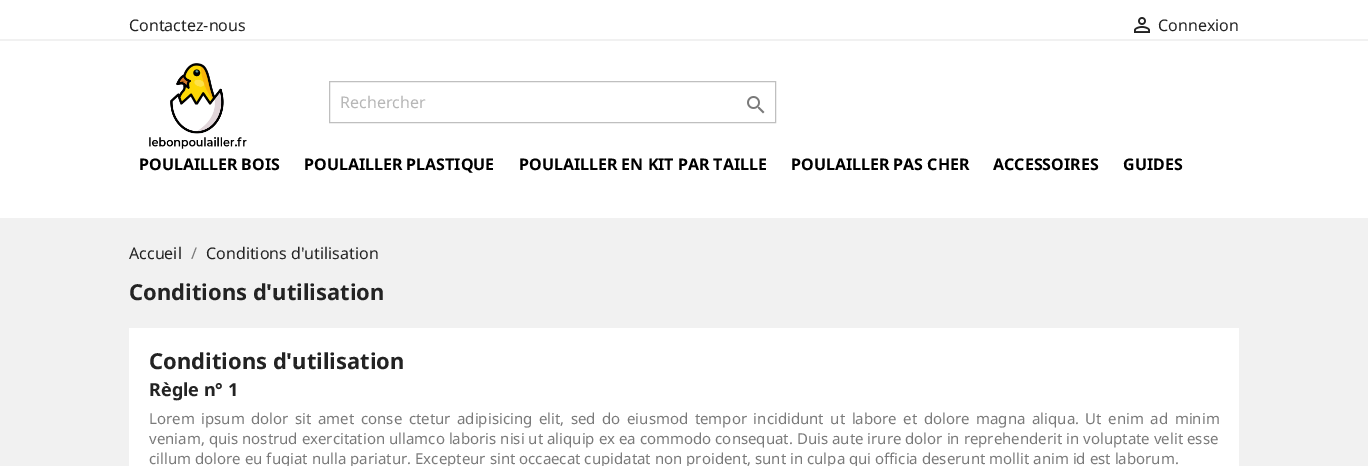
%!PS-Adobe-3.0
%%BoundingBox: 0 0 1368 466
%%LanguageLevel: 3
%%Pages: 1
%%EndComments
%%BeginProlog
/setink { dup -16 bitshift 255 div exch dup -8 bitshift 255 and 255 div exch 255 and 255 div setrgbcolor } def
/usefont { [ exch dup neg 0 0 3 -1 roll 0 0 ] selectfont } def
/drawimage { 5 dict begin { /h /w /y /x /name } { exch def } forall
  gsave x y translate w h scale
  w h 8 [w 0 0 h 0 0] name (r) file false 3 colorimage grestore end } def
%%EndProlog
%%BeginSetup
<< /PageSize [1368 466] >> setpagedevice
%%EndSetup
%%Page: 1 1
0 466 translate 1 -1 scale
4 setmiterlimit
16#FFFFFF setink
0 0 1368 466 rectfill
16#F1F1F1 setink
0 39 1368 2 rectfill
/NotoSans-Regular 16 usefont
16#232323 setink
129 31 moveto (Contactez-nous) show
(img1.raw) 1134 17 16 16 drawimage
1158 31 moveto (Connexion) show
(img2.raw) 149 63 98 86 drawimage
16#BFBFBF setink
329.5 81.5 446 41 rectstroke
16#B7B7B7 setink
340 108 moveto (Rechercher) show
(img3.raw) 747 96 18 18 drawimage
/NotoSans-Bold 16 usefont
16#000000 setink
[
    [(POULAILLER BOIS) 139 170]
    [(POULAILLER PLASTIQUE) 304 170]
    [(POULAILLER EN KIT PAR TAILLE) 519 170]
    [(POULAILLER PAS CHER) 791 170]
    [(ACCESSOIRES) 993 170]
    [(GUIDES) 1123 170]
] { aload pop moveto show } forall
16#F1F1F1 setink
0 218 1368 248 rectfill
/NotoSans-Regular 16 usefont
16#232323 setink
129 259 moveto (Accueil) show
16#7A7A7A setink
191 259 moveto (/) show
16#232323 setink
206 259 moveto (Conditions d'utilisation) show
/NotoSans-Bold 22 usefont
129 300 moveto (Conditions d'utilisation) show
16#FFFFFF setink
129 328 1110 138 rectfill
16#232323 setink
149 369 moveto (Conditions d'utilisation) show
/NotoSans-Bold 18 usefont
149 396 moveto (Règle n° 1) show
/NotoSans-Regular 15 usefont
16#7A7A7A setink
149 424 moveto 2.6 0 32 (Lorem ipsum dolor sit amet conse ctetur adipisicing elit, sed do eiusmod tempor incididunt ut labore et dolore magna aliqua. Ut enim ad minim) widthshow
149 444 moveto (veniam, quis nostrud exercitation ullamco laboris nisi ut aliquip ex ea commodo consequat. Duis aute irure dolor in reprehenderit in voluptate velit esse) show
149 464 moveto (cillum dolore eu fugiat nulla pariatur. Excepteur sint occaecat cupidatat non proident, sunt in culpa qui officia deserunt mollit anim id est laborum.) show
showpage
%%EOF
